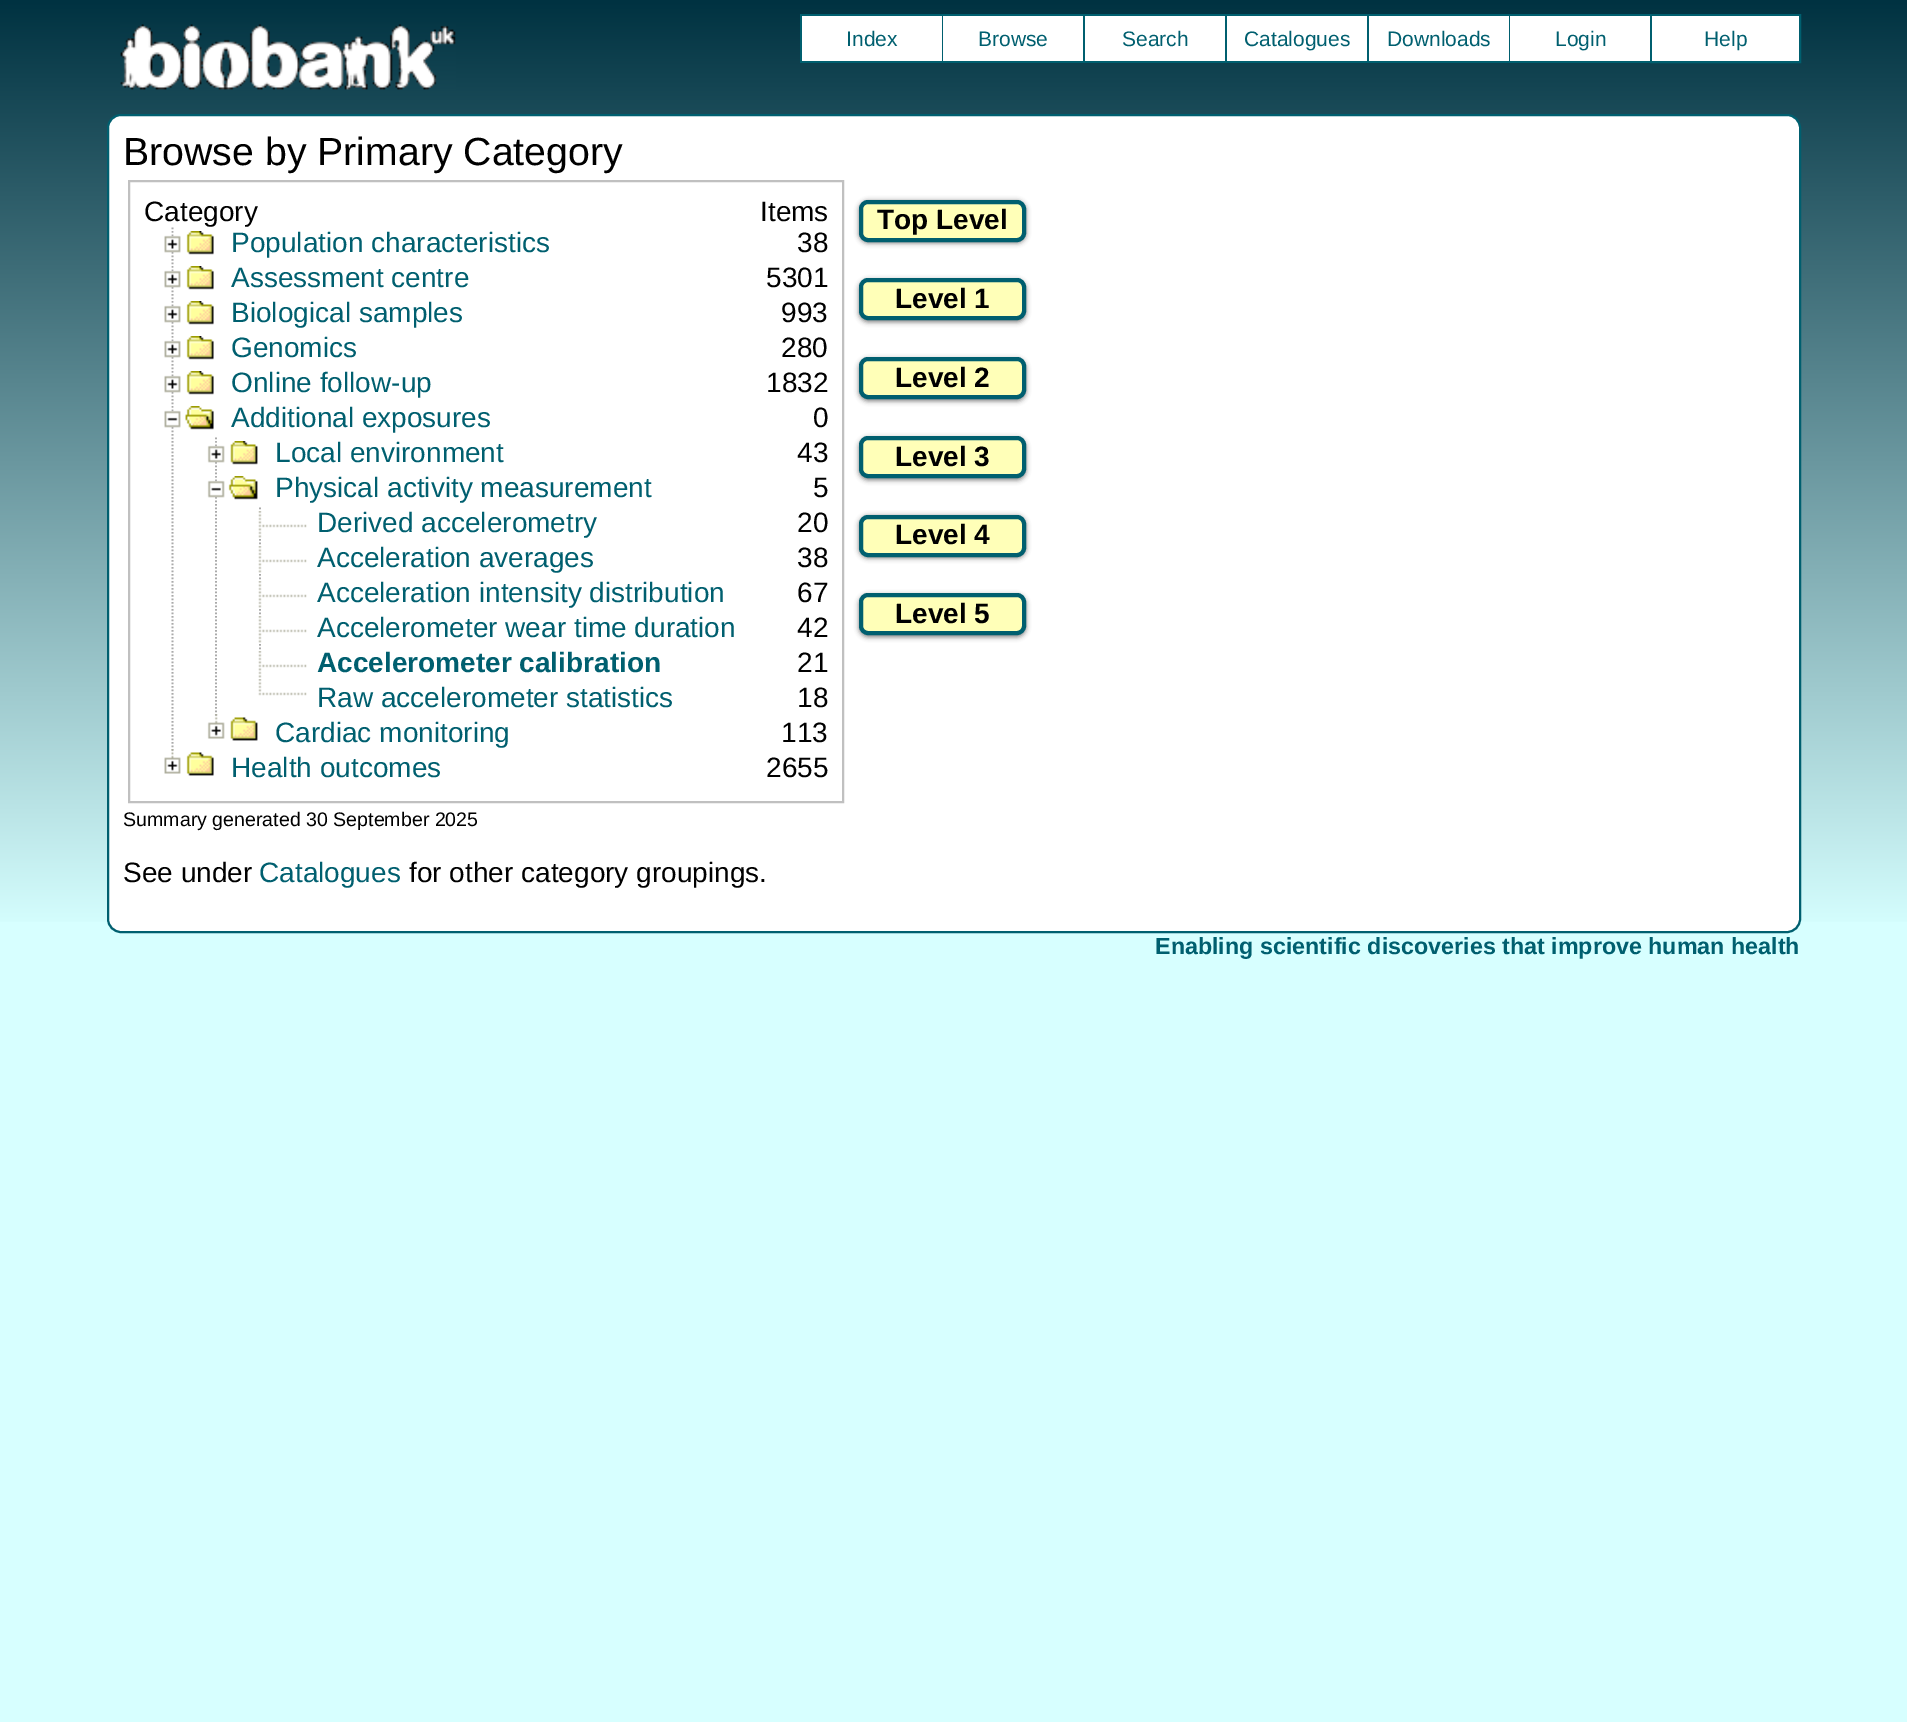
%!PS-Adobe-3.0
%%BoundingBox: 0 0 1907 1722
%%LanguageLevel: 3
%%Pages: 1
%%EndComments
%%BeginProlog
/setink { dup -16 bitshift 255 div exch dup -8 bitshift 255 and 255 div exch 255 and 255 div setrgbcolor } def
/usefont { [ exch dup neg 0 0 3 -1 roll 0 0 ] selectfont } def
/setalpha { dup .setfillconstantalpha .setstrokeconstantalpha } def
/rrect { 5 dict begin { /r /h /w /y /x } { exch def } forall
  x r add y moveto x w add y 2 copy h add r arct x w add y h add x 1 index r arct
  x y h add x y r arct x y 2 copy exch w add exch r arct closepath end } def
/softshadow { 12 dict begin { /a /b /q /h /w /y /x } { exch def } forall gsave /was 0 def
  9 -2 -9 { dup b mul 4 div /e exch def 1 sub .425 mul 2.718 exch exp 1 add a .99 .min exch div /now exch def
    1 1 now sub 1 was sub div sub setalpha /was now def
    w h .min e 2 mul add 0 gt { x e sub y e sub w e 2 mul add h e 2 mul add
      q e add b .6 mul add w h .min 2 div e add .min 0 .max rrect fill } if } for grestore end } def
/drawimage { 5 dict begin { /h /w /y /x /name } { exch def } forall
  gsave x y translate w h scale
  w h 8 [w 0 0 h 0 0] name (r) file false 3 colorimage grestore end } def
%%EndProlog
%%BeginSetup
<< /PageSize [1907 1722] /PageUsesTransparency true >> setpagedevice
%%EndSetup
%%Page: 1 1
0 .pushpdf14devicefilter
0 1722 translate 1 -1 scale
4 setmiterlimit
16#D7FFFF setink
0 0 1907 1722 rectfill
gsave 0 0 moveto 1907 0 lineto 1907 922 lineto 0 922 lineto closepath clip newpath
<< /ShadingType 2 /ColorSpace /DeviceRGB /Coords [0 0 0 933] /Extend [true true] /Function << /FunctionType 2 /Domain [0 1] /C0 [0 0.196 0.255] /C1 [0.843 1 1] /N 1 >> >> shfill grestore
(img1.raw) 120 24 336 66 drawimage
[
    [800 14 850 2 16#005F6F]
    [800 61 850 2 16#005F6F]
    [800 14 2 49 16#005F6F]
    [802 16 140 45 16#FFFFFF]
] { aload pop setink rectfill } forall
/LiberationSans-Regular 21 usefont
16#005F6F setink
846 46 moveto (Index) show
942 14 2 49 rectfill
16#FFFFFF setink
943 16 140 45 rectfill
16#005F6F setink
978 46 moveto (Browse) show
1083 14 2 49 rectfill
16#FFFFFF setink
1085 16 140 45 rectfill
16#005F6F setink
1122 46 moveto (Search) show
1225 14 2 49 rectfill
16#FFFFFF setink
1227 16 140 45 rectfill
16#005F6F setink
1244 46 moveto (Catalogues) show
1367 14 2 49 rectfill
16#FFFFFF setink
1369 16 140 45 rectfill
16#005F6F setink
1387 46 moveto (Downloads) show
1509 14 2 49 rectfill
16#FFFFFF setink
1510 16 140 45 rectfill
16#005F6F setink
1555 46 moveto (Login) show
2 setlinewidth
1651 15 149 47 rectstroke
16#FFFFFF setink
1652 16 147 45 rectfill
16#005F6F setink
1704 46 moveto (Help) show
16#FFFFFF setink
108 115 1692 817 13 rrect gsave fill grestore
16#005F6F setink
stroke
/LiberationSans-Regular 39.25 usefont
16#000000 setink
123 165 moveto (Browse by Primary Category) show
16#C0C0C0 setink
129 181 714 621 rectstroke
/LiberationSans-Regular 28 usefont
16#000000 setink
144 221 moveto (Category) show
760 221 moveto (Items) show
16#AAAAAA setink
1.8 setlinewidth
[1.75 1.75] 0 setdash
172.5 227.5 moveto 172.5 262.5 lineto stroke
(img2.raw) 164 231 50 24 drawimage
16#005F6F setink
231 252 moveto (Population characteristics) show
16#000000 setink
797 252 moveto (38) show
16#AAAAAA setink
172.5 262.5 moveto 172.5 297.5 lineto stroke
(img2.raw) 164 266 50 24 drawimage
16#005F6F setink
231 287 moveto (Assessment centre) show
16#000000 setink
766 287 moveto (5301) show
16#AAAAAA setink
172.5 297.5 moveto 172.5 332.5 lineto stroke
(img2.raw) 164 301 50 24 drawimage
16#005F6F setink
231 322 moveto (Biological samples) show
16#000000 setink
781 322 moveto (993) show
16#AAAAAA setink
172.5 332.5 moveto 172.5 367.5 lineto stroke
(img2.raw) 164 336 50 24 drawimage
16#005F6F setink
231 357 moveto (Genomics) show
16#000000 setink
781 357 moveto (280) show
16#AAAAAA setink
172.5 367.5 moveto 172.5 402.5 lineto stroke
(img2.raw) 164 371 50 24 drawimage
16#005F6F setink
231 392 moveto (Online follow-up) show
16#000000 setink
766 392 moveto (1832) show
16#AAAAAA setink
172.5 402.5 moveto 172.5 752.5 lineto stroke
(img3.raw) 164 406 50 24 drawimage
16#005F6F setink
231 427 moveto (Additional exposures) show
16#000000 setink
813 427 moveto (0) show
16#AAAAAA setink
216 437.5 moveto 216 472.5 lineto stroke
(img4.raw) 207 441 51 24 drawimage
16#005F6F setink
275 462 moveto (Local environment) show
16#000000 setink
797 462 moveto (43) show
16#AAAAAA setink
216 472.5 moveto 216 717.5 lineto stroke
(img5.raw) 207 476 51 24 drawimage
16#005F6F setink
275 497 moveto (Physical activity measurement) show
16#000000 setink
813 497 moveto (5) show
16#AAAAAA setink
260 507.5 moveto 260 542.5 lineto stroke
(img6.raw) 258 511 49 27 drawimage
16#005F6F setink
317 532 moveto (Derived accelerometry) show
16#000000 setink
797 532 moveto (20) show
16#AAAAAA setink
260 542.5 moveto 260 577.5 lineto stroke
(img6.raw) 258 546 49 27 drawimage
16#005F6F setink
317 567 moveto (Acceleration averages) show
16#000000 setink
797 567 moveto (38) show
16#AAAAAA setink
260 577.5 moveto 260 612.5 lineto stroke
(img6.raw) 258 581 49 27 drawimage
16#005F6F setink
317 602 moveto (Acceleration intensity distribution) show
16#000000 setink
797 602 moveto (67) show
16#AAAAAA setink
260 612.5 moveto 260 647.5 lineto stroke
(img6.raw) 258 616 49 27 drawimage
16#005F6F setink
317 637 moveto (Accelerometer wear time duration) show
16#000000 setink
797 637 moveto (42) show
16#AAAAAA setink
260 647.5 moveto 260 682.5 lineto stroke
(img6.raw) 258 651 49 27 drawimage
/LiberationSans-Bold 28 usefont
16#005F6F setink
317 672 moveto (Accelerometer calibration) show
/LiberationSans-Regular 28 usefont
16#000000 setink
797 672 moveto (21) show
(img7.raw) 258 679 49 17 drawimage
16#005F6F setink
317 707 moveto (Raw accelerometer statistics) show
16#000000 setink
797 707 moveto (18) show
(img8.raw) 207 714 51 27 drawimage
16#005F6F setink
275 742 moveto (Cardiac monitoring) show
16#000000 setink
781 742 moveto (113) show
(img9.raw) 164 749 50 27 drawimage
16#005F6F setink
231 777 moveto (Health outcomes) show
16#000000 setink
766 777 moveto (2655) show
859 201 167 42 9 2.5 0.5 softshadow
16#FFFFB8 setink
861 202 163 38 7 rrect gsave fill grestore
16#005F6F setink
4 setlinewidth
[] 0 setdash
stroke
/LiberationSans-Bold 28 usefont
16#000000 setink
877 229 moveto (Top Level) show
859 280 167 42 9 2.5 0.5 softshadow
16#FFFFB8 setink
861 280 163 38 7 rrect gsave fill grestore
16#005F6F setink
stroke
16#000000 setink
895 308 moveto (Level 1) show
859 359 167 42 9 2.5 0.5 softshadow
16#FFFFB8 setink
861 359 163 38 7 rrect gsave fill grestore
16#005F6F setink
stroke
16#000000 setink
895 387 moveto (Level 2) show
859 438 167 42 9 2.5 0.5 softshadow
16#FFFFB8 setink
861 438 163 38 7 rrect gsave fill grestore
16#005F6F setink
stroke
16#000000 setink
895 466 moveto (Level 3) show
859 516 167 42 9 2.5 0.5 softshadow
16#FFFFB8 setink
861 517 163 38 7 rrect gsave fill grestore
16#005F6F setink
stroke
16#000000 setink
895 544 moveto (Level 4) show
859 595 167 42 9 2.5 0.5 softshadow
16#FFFFB8 setink
861 595 163 38 7 rrect gsave fill grestore
16#005F6F setink
stroke
16#000000 setink
895 623 moveto (Level 5) show
/LiberationSans-Regular 19.6 usefont
123 826 moveto (Summary generated 30 September 2025) show
/LiberationSans-Regular 28 usefont
123 882 moveto (See under) show
16#005F6F setink
259 882 moveto (Catalogues) show
16#000000 setink
409 882 moveto (for other category groupings.) show
/LiberationSans-Bold 23.3 usefont
16#005F6F setink
1155 954 moveto (Enabling scientific discoveries that improve human health) show
.poppdf14devicefilter showpage
%%EOF
